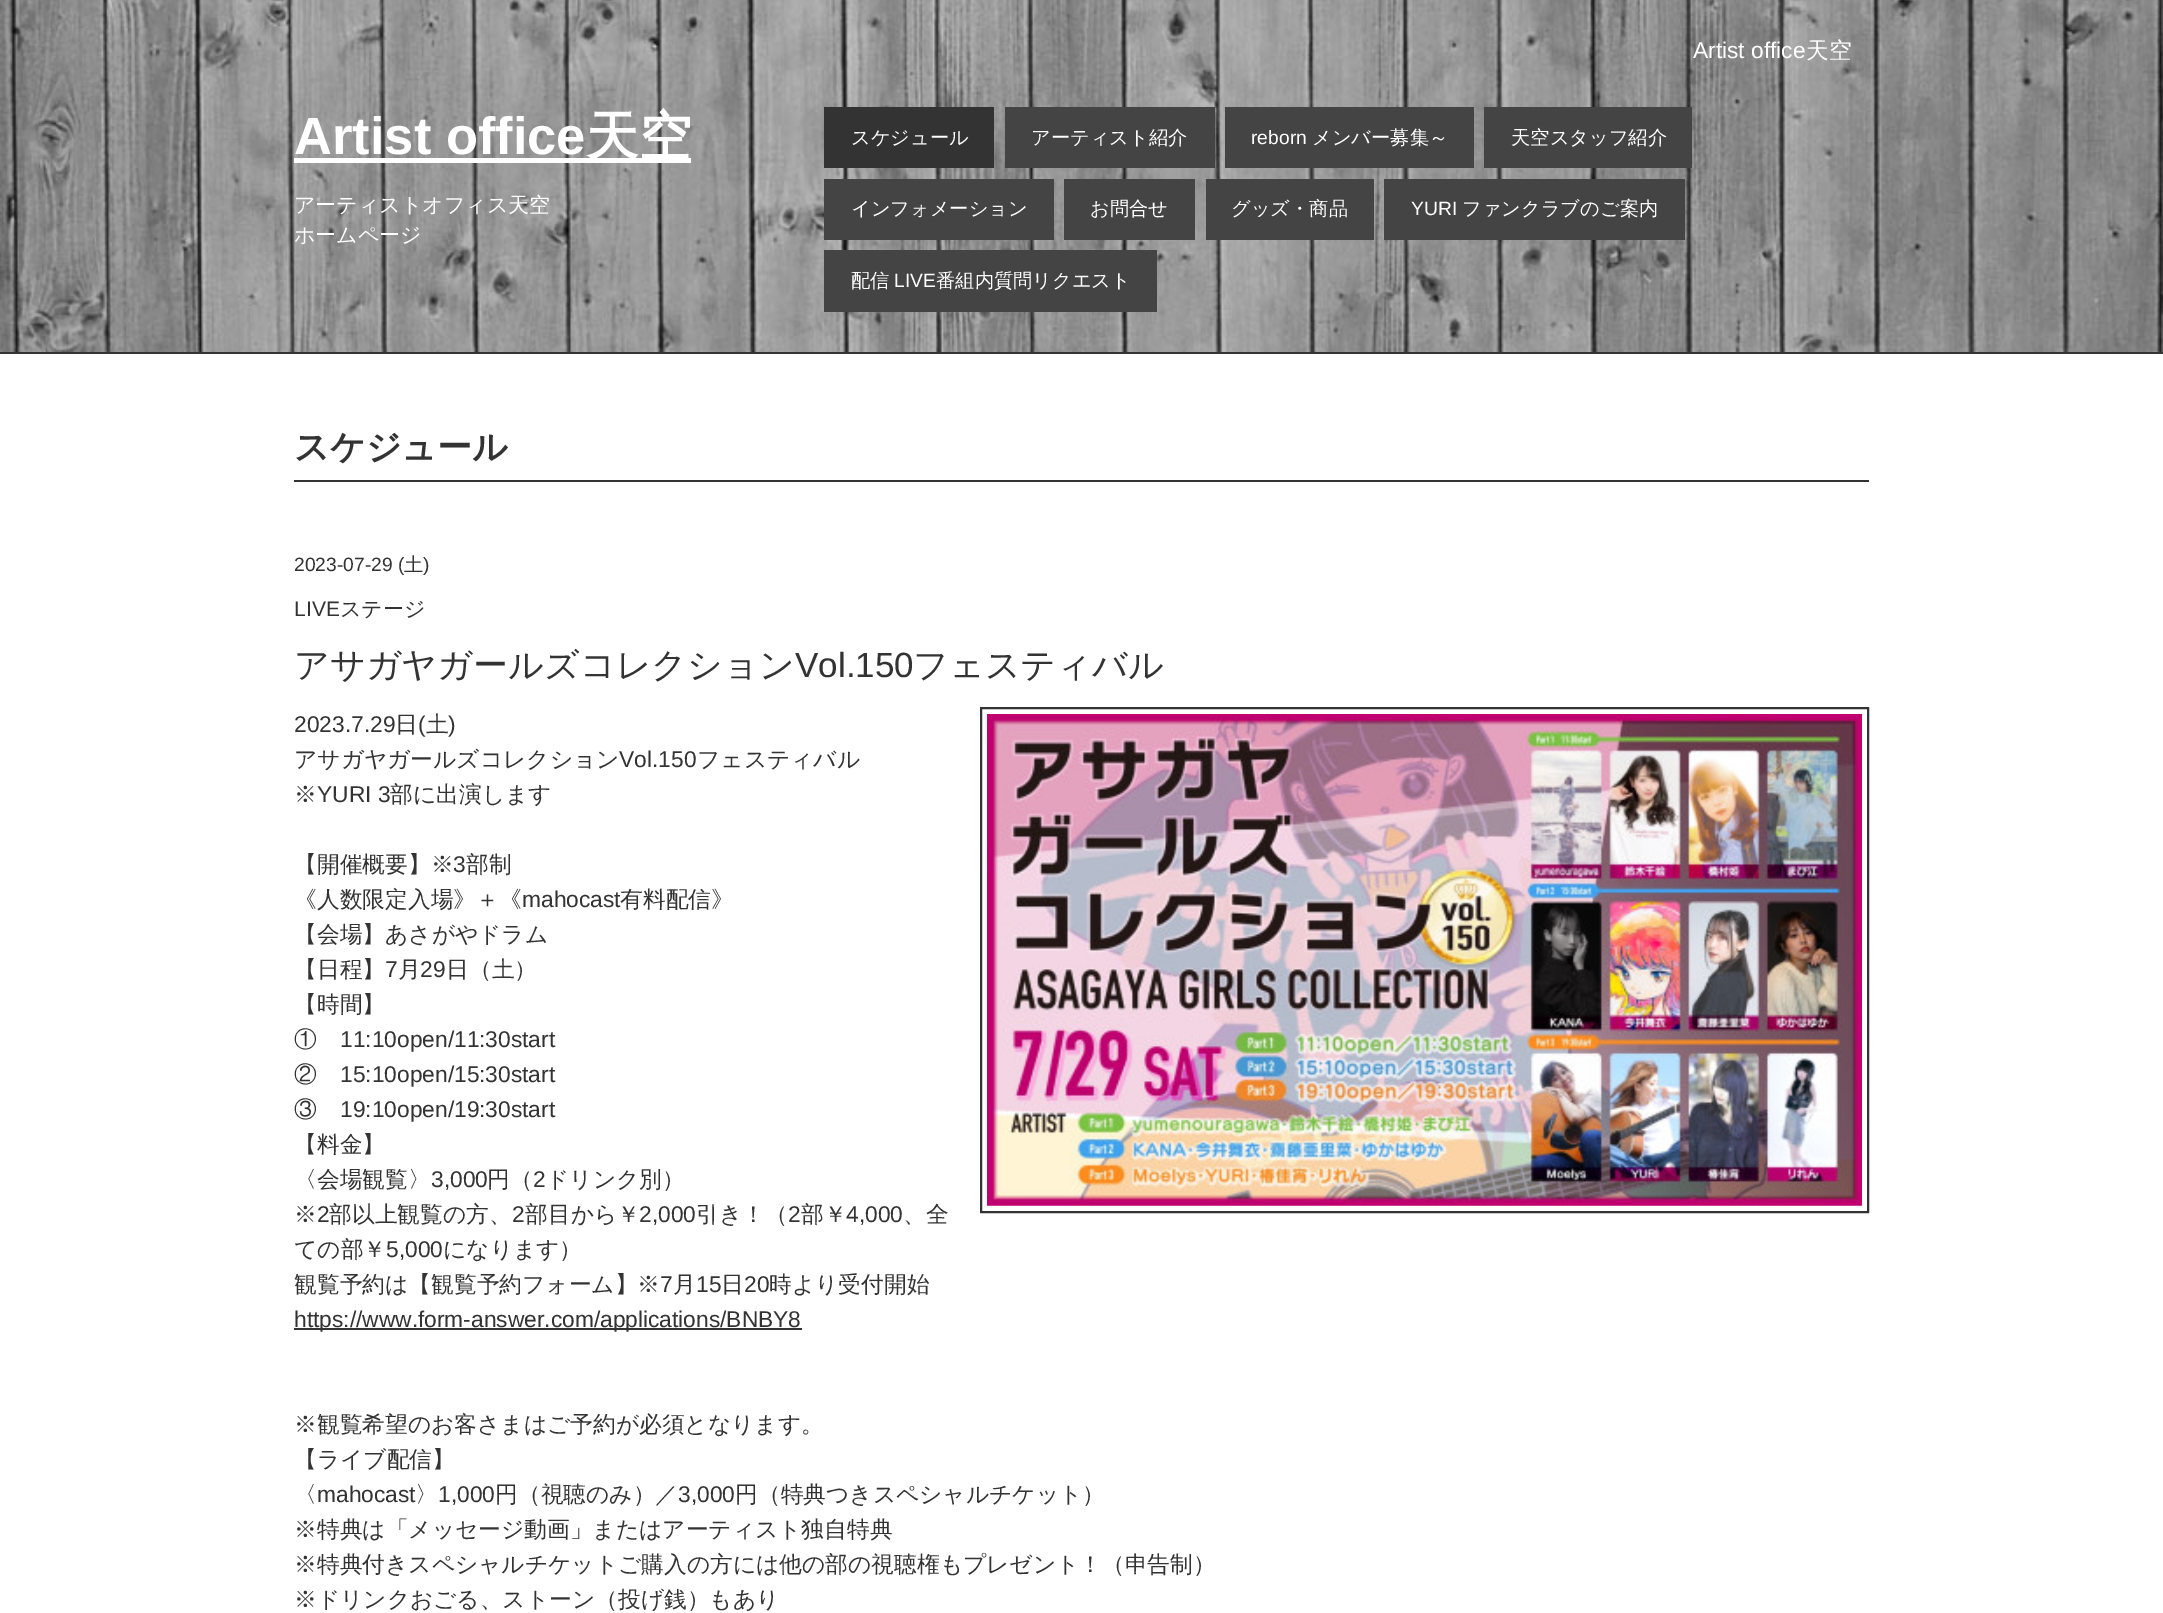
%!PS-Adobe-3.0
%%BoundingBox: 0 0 2163 1613
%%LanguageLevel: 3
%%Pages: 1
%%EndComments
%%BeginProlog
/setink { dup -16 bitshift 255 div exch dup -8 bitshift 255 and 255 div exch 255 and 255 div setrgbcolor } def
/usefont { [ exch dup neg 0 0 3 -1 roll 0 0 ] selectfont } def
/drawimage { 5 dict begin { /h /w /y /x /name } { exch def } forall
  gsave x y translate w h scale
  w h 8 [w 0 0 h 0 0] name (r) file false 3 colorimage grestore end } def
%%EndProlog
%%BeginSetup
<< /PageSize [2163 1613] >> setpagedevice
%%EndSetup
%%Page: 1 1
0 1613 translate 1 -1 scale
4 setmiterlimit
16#FFFFFF setink
0 0 2163 1613 rectfill
(img1.raw) 0 0 2163 352 drawimage
/LiberationSans-Regular 22.75 usefont
1693 58 moveto (Artist office) show
/WenQuanYiZenHei-Medium 22.75 usefont
1806 58 moveto (天空) show
/LiberationSans-Bold 52.5 usefont
294 154 moveto (Artist office) show
294 158 397 5 rectfill
/WenQuanYiZenHei-Bold 52.5 usefont
586 154 moveto (天空) show
/WenQuanYiZenHei-Medium 21 usefont
294 212 moveto (アーティストオフィス天空) show
294 242 moveto (ホームページ) show
16#333333 setink
824 107 170 61 rectfill
/WenQuanYiZenHei-Medium 19.25 usefont
16#FFFFFF setink
851 144 moveto (スケジュール) show
16#444444 setink
1005 107 210 61 rectfill
16#FFFFFF setink
1031 144 moveto (アーティスト紹介) show
16#444444 setink
1225 107 249 61 rectfill
/LiberationSans-Regular 19.25 usefont
16#FFFFFF setink
1251 144 moveto (reborn) show
/WenQuanYiZenHei-Medium 19.25 usefont
1312 144 moveto (メンバー募集～) show
16#444444 setink
1484 107 208 61 rectfill
16#FFFFFF setink
1511 144 moveto (天空スタッフ紹介) show
16#444444 setink
824 179 230 61 rectfill
16#FFFFFF setink
851 215 moveto (インフォメーション) show
16#444444 setink
1064 179 131 61 rectfill
16#FFFFFF setink
1090 215 moveto (お問合せ) show
16#444444 setink
1206 179 168 61 rectfill
16#FFFFFF setink
1231 215 moveto (グッズ・商品) show
16#444444 setink
1384 179 301 61 rectfill
/LiberationSans-Regular 19.25 usefont
16#FFFFFF setink
1411 215 moveto (YURI) show
/WenQuanYiZenHei-Medium 19.25 usefont
1462 215 moveto (ファンクラブのご案内) show
16#444444 setink
824 250 333 62 rectfill
16#FFFFFF setink
851 287 moveto (配信) show
/LiberationSans-Regular 19.25 usefont
894 287 moveto (LIVE) show
/WenQuanYiZenHei-Medium 19.25 usefont
936 287 moveto (番組内質問リクエスト) show
16#333333 setink
0 352 2163 2 rectfill
294 480 1575 2 rectfill
/WenQuanYiZenHei-Bold 35 usefont
294 459 moveto (スケジュール) show
/LiberationSans-Regular 19.25 usefont
294 571 moveto (2023-07-29 \() show
/WenQuanYiZenHei-Medium 19.25 usefont
404 571 moveto (土) show
/LiberationSans-Regular 19.25 usefont
423 571 moveto (\)) show
/LiberationSans-Regular 21 usefont
294 616 moveto (LIVE) show
/WenQuanYiZenHei-Medium 21 usefont
340 616 moveto (ステージ) show
/WenQuanYiZenHei-Medium 35 usefont
294 677 moveto (アサガヤガールズコレクション) show
/LiberationSans-Regular 35 usefont
795 677 moveto (Vol.150) show
/WenQuanYiZenHei-Medium 35 usefont
913 677 moveto (フェスティバル) show
/LiberationSans-Regular 22.75 usefont
294 732 moveto (2023.7.29) show
/WenQuanYiZenHei-Medium 22.75 usefont
395 732 moveto (日) show
/LiberationSans-Regular 22.75 usefont
418 732 moveto (\() show
/WenQuanYiZenHei-Medium 22.75 usefont
426 732 moveto (土) show
/LiberationSans-Regular 22.75 usefont
448 732 moveto (\)) show
2 setlinewidth
981 708 887 504 rectstroke
(img2.raw) 987 714 875 492 drawimage
/WenQuanYiZenHei-Medium 22.75 usefont
294 767 moveto (アサガヤガールズコレクション) show
/LiberationSans-Regular 22.75 usefont
619 767 moveto (Vol.150) show
/WenQuanYiZenHei-Medium 22.75 usefont
697 767 moveto (フェスティバル) show
294 802 moveto (※) show
/LiberationSans-Regular 22.75 usefont
317 802 moveto (YURI 3) show
/WenQuanYiZenHei-Medium 22.75 usefont
390 802 moveto (部に出演します) show
294 872 moveto (【開催概要】※) show
/LiberationSans-Regular 22.75 usefont
453 872 moveto (3) show
/WenQuanYiZenHei-Medium 22.75 usefont
466 872 moveto (部制) show
294 907 moveto (《人数限定入場》＋《) show
/LiberationSans-Regular 22.75 usefont
522 907 moveto (mahocast) show
/WenQuanYiZenHei-Medium 22.75 usefont
[
    [(有料配信》) 620 907]
    [(【会場】あさがやドラム) 294 942]
    [(【日程】) 294 977]
] { aload pop moveto show } forall
/LiberationSans-Regular 22.75 usefont
385 977 moveto (7) show
/WenQuanYiZenHei-Medium 22.75 usefont
398 977 moveto (月) show
/LiberationSans-Regular 22.75 usefont
420 977 moveto (29) show
/WenQuanYiZenHei-Medium 22.75 usefont
[
    [(日（土）) 446 977]
    [(【時間】) 294 1012]
    [(①) 294 1047]
] { aload pop moveto show } forall
/LiberationSans-Regular 22.75 usefont
340 1047 moveto (11:10open/11:30start) show
/WenQuanYiZenHei-Medium 22.75 usefont
294 1082 moveto (②) show
/LiberationSans-Regular 22.75 usefont
340 1082 moveto (15:10open/15:30start) show
/WenQuanYiZenHei-Medium 22.75 usefont
294 1117 moveto (③) show
/LiberationSans-Regular 22.75 usefont
340 1117 moveto (19:10open/19:30start) show
/WenQuanYiZenHei-Medium 22.75 usefont
294 1152 moveto (【料金】) show
294 1187 moveto (〈会場観覧〉) show
/LiberationSans-Regular 22.75 usefont
431 1187 moveto (3,000) show
/WenQuanYiZenHei-Medium 22.75 usefont
487 1187 moveto (円（) show
/LiberationSans-Regular 22.75 usefont
533 1187 moveto (2) show
/WenQuanYiZenHei-Medium 22.75 usefont
546 1187 moveto (ドリンク別）) show
294 1222 moveto (※) show
/LiberationSans-Regular 22.75 usefont
317 1222 moveto (2) show
/WenQuanYiZenHei-Medium 22.75 usefont
329 1222 moveto (部以上観覧の方、) show
/LiberationSans-Regular 22.75 usefont
512 1222 moveto (2) show
/WenQuanYiZenHei-Medium 22.75 usefont
525 1222 moveto (部目から￥) show
/LiberationSans-Regular 22.75 usefont
639 1222 moveto (2,000) show
/WenQuanYiZenHei-Medium 22.75 usefont
696 1222 moveto (引き！（) show
/LiberationSans-Regular 22.75 usefont
788 1222 moveto (2) show
/WenQuanYiZenHei-Medium 22.75 usefont
801 1222 moveto (部￥) show
/LiberationSans-Regular 22.75 usefont
846 1222 moveto (4,000) show
/WenQuanYiZenHei-Medium 22.75 usefont
903 1222 moveto (、全) show
294 1257 moveto (ての部￥) show
/LiberationSans-Regular 22.75 usefont
386 1257 moveto (5,000) show
/WenQuanYiZenHei-Medium 22.75 usefont
443 1257 moveto (になります）) show
294 1292 moveto (観覧予約は【観覧予約フォーム】※) show
/LiberationSans-Regular 22.75 usefont
660 1292 moveto (7) show
/WenQuanYiZenHei-Medium 22.75 usefont
673 1292 moveto (月) show
/LiberationSans-Regular 22.75 usefont
696 1292 moveto (15) show
/WenQuanYiZenHei-Medium 22.75 usefont
721 1292 moveto (日) show
/LiberationSans-Regular 22.75 usefont
744 1292 moveto (20) show
/WenQuanYiZenHei-Medium 22.75 usefont
769 1292 moveto (時より受付開始) show
294 1328 508 2 rectfill
/LiberationSans-Regular 22.75 usefont
294 1327 moveto (https://www.form-answer.com/applications/BNBY8) show
/WenQuanYiZenHei-Medium 22.75 usefont
[
    [(※観覧希望のお客さまはご予約が必須となります。) 294 1432]
    [(【ライブ配信】) 294 1467]
    [(〈) 294 1502]
] { aload pop moveto show } forall
/LiberationSans-Regular 22.75 usefont
317 1502 moveto (mahocast) show
/WenQuanYiZenHei-Medium 22.75 usefont
415 1502 moveto (〉) show
/LiberationSans-Regular 22.75 usefont
438 1502 moveto (1,000) show
/WenQuanYiZenHei-Medium 22.75 usefont
495 1502 moveto (円（視聴のみ）／) show
/LiberationSans-Regular 22.75 usefont
678 1502 moveto (3,000) show
/WenQuanYiZenHei-Medium 22.75 usefont
[
    [(円（特典つきスペシャルチケット）) 735 1502]
    [(※特典は「メッセージ動画」またはアーティスト独自特典) 294 1537]
    [(※特典付きスペシャルチケットご購入の方には他の部の視聴権もプレゼント！（申告制）) 294 1572]
    [(※ドリンクおごる、ストーン（投げ銭）もあり) 294 1607]
] { aload pop moveto show } forall
showpage
%%EOF
